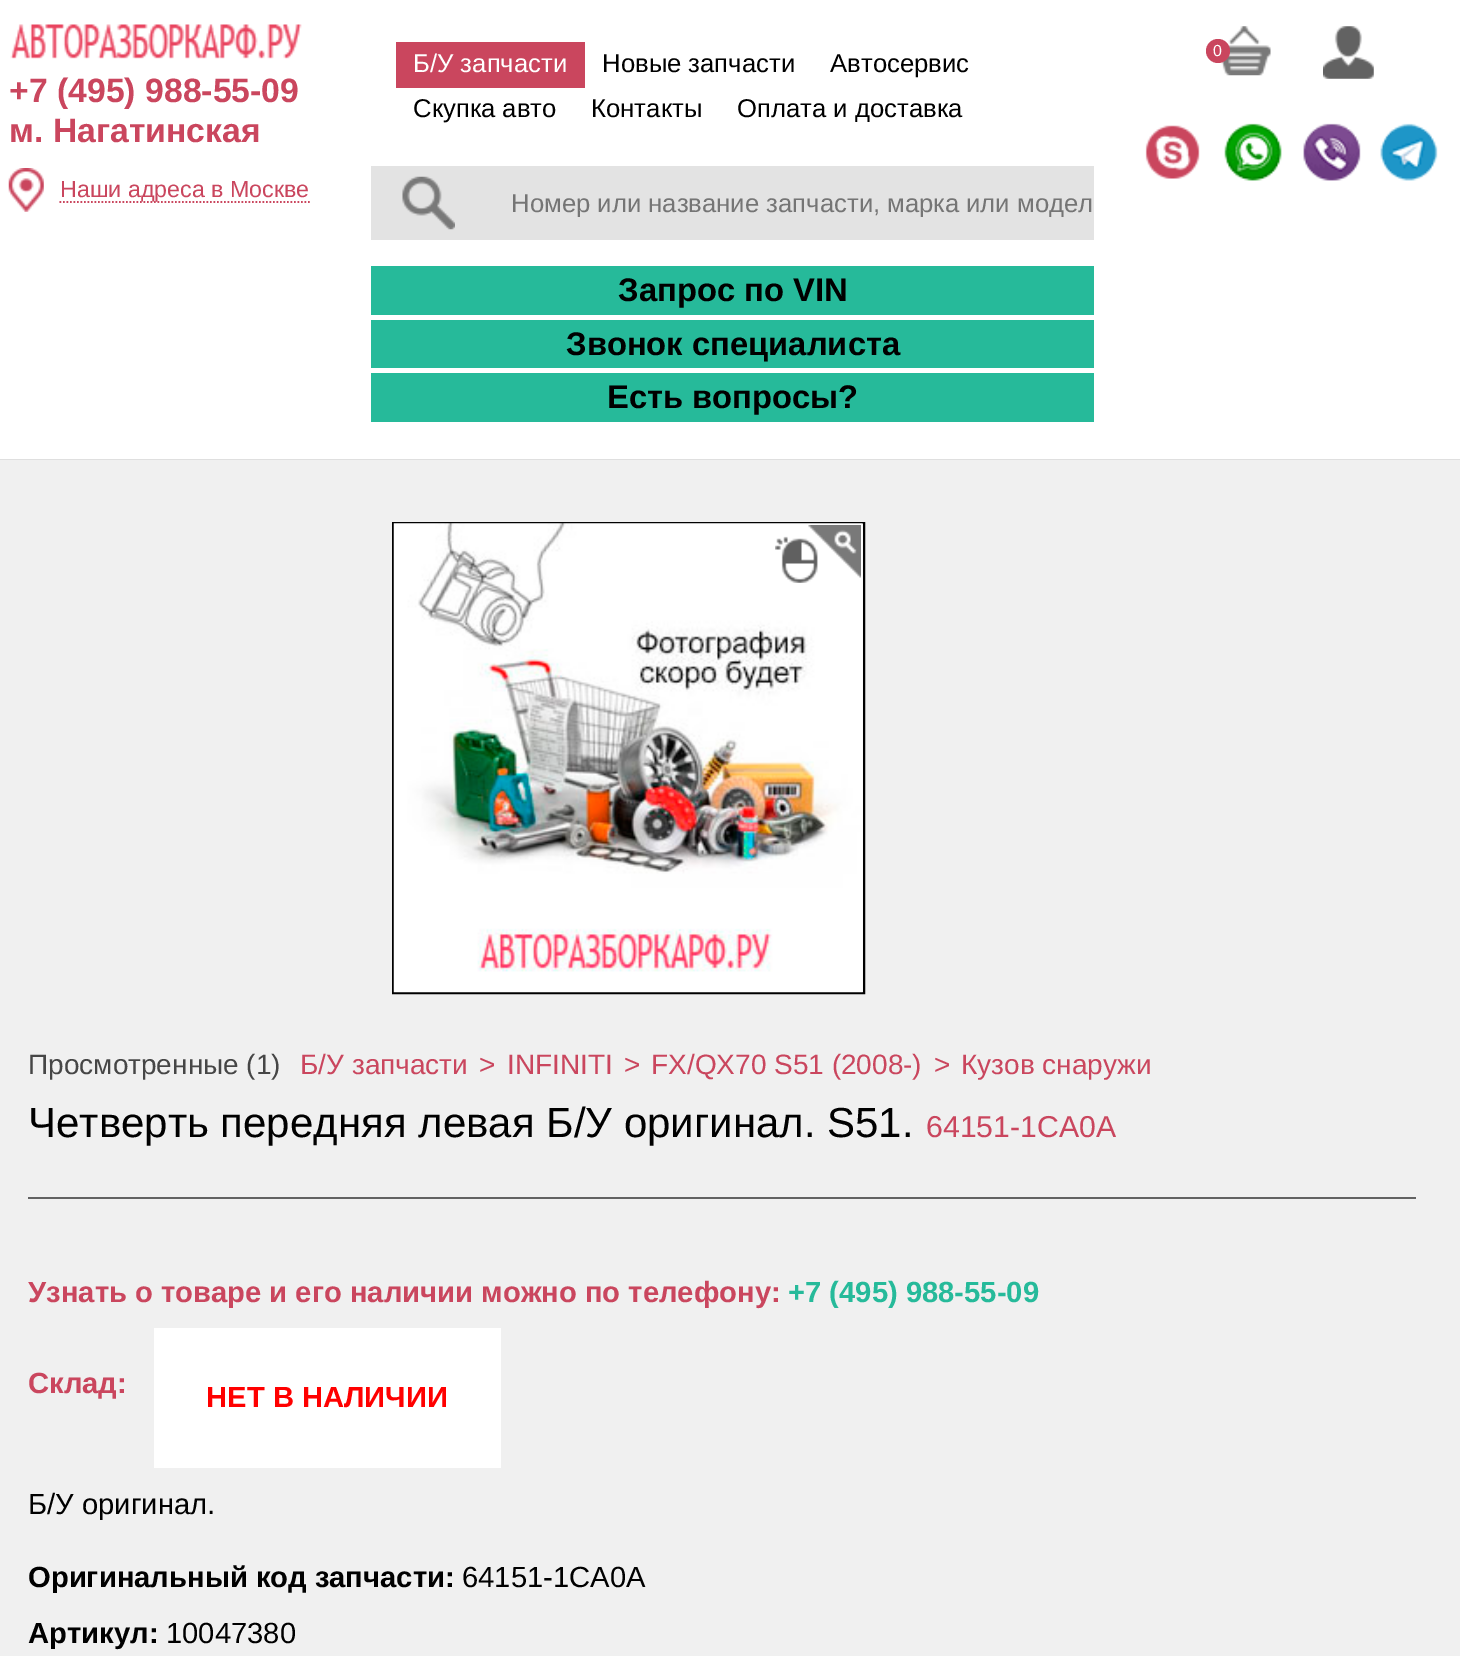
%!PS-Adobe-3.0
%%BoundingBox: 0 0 1460 1656
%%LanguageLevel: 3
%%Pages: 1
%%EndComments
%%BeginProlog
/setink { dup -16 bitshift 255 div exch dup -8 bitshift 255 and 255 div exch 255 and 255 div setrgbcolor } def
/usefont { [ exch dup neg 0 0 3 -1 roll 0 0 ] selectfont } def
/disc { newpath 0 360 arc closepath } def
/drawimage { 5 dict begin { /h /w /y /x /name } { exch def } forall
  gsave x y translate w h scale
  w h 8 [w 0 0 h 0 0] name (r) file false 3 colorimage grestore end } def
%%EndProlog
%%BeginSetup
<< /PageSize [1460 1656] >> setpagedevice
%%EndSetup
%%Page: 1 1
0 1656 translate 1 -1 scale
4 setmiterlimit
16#FFFFFF setink
0 0 1460 1656 rectfill
16#DFDFDF setink
0 459 1460 1 rectfill
(img1.raw) 1221 26 50 50 drawimage
16#CA465E setink
1218 51 12 disc fill
/LiberationSans-Regular 16 usefont
16#FFFFFF setink
1213 56 moveto (0) show
(img2.raw) 1323 26 51 53 drawimage
(img3.raw) 1145 125 55 54 drawimage
(img4.raw) 1224 123 58 58 drawimage
(img5.raw) 1303 123 58 58 drawimage
(img6.raw) 1380 123 58 58 drawimage
(img7.raw) 10 24 292 35 drawimage
/LiberationSans-Bold 33.75 usefont
16#CA465E setink
9 102 moveto (+7 \(495\) 988-55-09) show
9 142 moveto (м. Нагатинская) show
(img8.raw) 8 168 36 44 drawimage
1.8 setlinewidth
[1.75 1.75] 0 setdash
59.5 202 moveto 310 202 lineto stroke
/LiberationSans-Regular 23.25 usefont
60 197 moveto (Наши адреса в Москве) show
396 42 189 46 rectfill
/LiberationSans-Regular 25.7 usefont
16#FFFFFF setink
413 72 moveto (Б/У запчасти) show
16#000000 setink
[
    [(Новые запчасти) 602 72]
    [(Автосервис) 830 72]
    [(Скупка авто) 413 117]
    [(Контакты) 591 117]
    [(Оплата и доставка) 737 117]
] { aload pop moveto show } forall
16#E3E3E3 setink
371 166 723 74 rectfill
(img9.raw) 402 176 53 54 drawimage
gsave
511 189 583 28 rectclip
16#757575 setink
511 212 moveto (Номер или название запчасти, марка или модел) show
grestore
16#26BA9A setink
371 266 723 49 rectfill
/LiberationSans-Bold 32.75 usefont
16#000000 setink
618 301 moveto (Запрос по VIN) show
16#26BA9A setink
371 320 723 48 rectfill
16#000000 setink
566 355 moveto (Звонок специалиста) show
16#26BA9A setink
371 373 723 49 rectfill
16#000000 setink
607 408 moveto (Есть вопросы?) show
16#F0F0F0 setink
0 460 1460 1196 rectfill
16#000000 setink
2 setlinewidth
[] 0 setdash
393 523 471 470 rectstroke
(img10.raw) 393 523 470 470 drawimage
(img11.raw) 775 525 86 58 drawimage
/LiberationSans-Regular 28 usefont
16#464646 setink
28 1074 moveto (Просмотренные \(1\)) show
16#CA465E setink
[
    [(Б/У запчасти) 300 1074]
    [(>) 479 1074]
    [(INFINITI) 507 1074]
    [(>) 624 1074]
    [(FX/QX70 S51 \(2008-\)) 651 1074]
    [(>) 934 1074]
    [(Кузов снаружи) 961 1074]
] { aload pop moveto show } forall
/LiberationSans-Regular 42 usefont
16#000000 setink
28 1137 moveto (Четверть передняя левая Б/У оригинал. S51.) show
/LiberationSans-Regular 30.25 usefont
16#CA465E setink
926 1137 moveto (64151-1CA0A) show
16#626262 setink
28 1197 1388 2 rectfill
/LiberationSans-Bold 29.2 usefont
16#CA465E setink
28 1302 moveto (Узнать о товаре и его наличии можно по телефону:) show
16#26BA9A setink
788 1302 moveto (+7 \(495\) 988-55-09) show
16#CA465E setink
28 1393 moveto (Склад:) show
16#FFFFFF setink
154 1328 347 140 rectfill
16#FF0000 setink
206 1407 moveto (НЕТ В НАЛИЧИИ) show
/LiberationSans-Regular 29.2 usefont
16#000000 setink
28 1514 moveto (Б/У оригинал.) show
/LiberationSans-Bold 29.2 usefont
28 1587 moveto (Оригинальный код запчасти:) show
/LiberationSans-Regular 29.2 usefont
462 1587 moveto (64151-1CA0A) show
/LiberationSans-Bold 29.2 usefont
28 1643 moveto (Артикул:) show
/LiberationSans-Regular 29.2 usefont
166 1643 moveto (10047380) show
showpage
%%EOF
